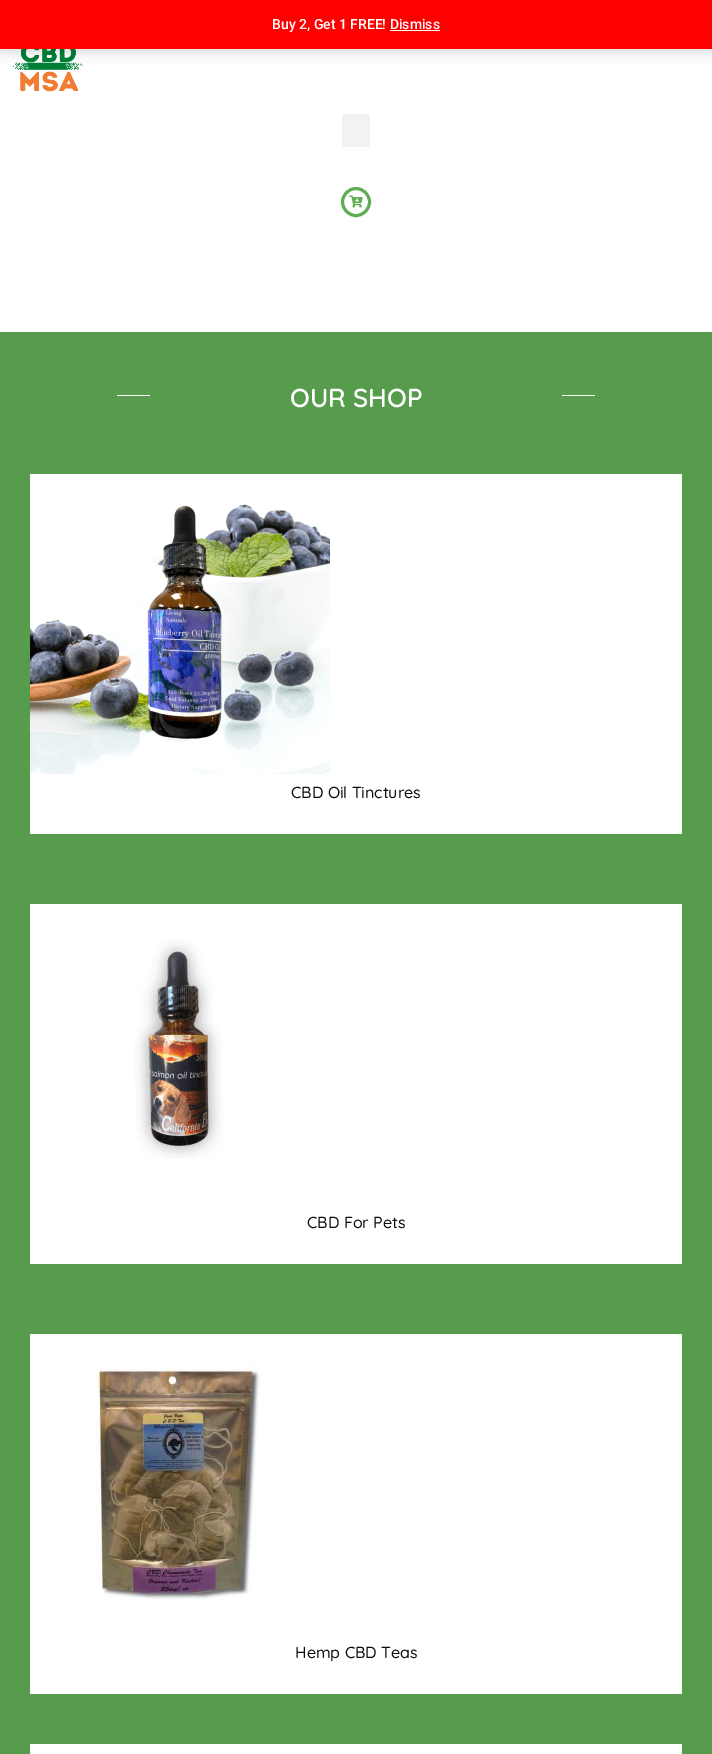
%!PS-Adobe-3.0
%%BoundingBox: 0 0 712 1754
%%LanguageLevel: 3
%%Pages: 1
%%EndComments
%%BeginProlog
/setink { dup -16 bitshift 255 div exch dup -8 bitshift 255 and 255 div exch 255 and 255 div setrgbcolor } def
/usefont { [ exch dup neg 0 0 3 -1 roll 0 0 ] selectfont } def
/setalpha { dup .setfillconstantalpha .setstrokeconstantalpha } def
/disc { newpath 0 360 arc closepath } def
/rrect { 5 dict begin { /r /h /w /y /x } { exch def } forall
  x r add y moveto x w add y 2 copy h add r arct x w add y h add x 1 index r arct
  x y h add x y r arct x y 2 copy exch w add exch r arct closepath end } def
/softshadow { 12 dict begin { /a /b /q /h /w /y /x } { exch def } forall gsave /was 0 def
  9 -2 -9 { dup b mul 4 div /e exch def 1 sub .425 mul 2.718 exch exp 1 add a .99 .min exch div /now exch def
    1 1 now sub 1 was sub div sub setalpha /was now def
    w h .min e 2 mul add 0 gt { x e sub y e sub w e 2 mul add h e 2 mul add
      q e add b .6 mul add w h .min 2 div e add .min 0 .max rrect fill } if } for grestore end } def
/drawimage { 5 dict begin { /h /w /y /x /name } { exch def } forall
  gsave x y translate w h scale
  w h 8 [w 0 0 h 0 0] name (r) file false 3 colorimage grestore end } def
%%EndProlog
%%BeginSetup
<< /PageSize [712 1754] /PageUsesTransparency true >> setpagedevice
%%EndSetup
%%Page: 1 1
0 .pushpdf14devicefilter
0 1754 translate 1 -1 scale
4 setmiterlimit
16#FFFFFF setink
0 0 712 1754 rectfill
(img1.raw) 12 49 71 43 drawimage
16#000000 setink
0 1 712 49 0 7 0.2 softshadow
16#FF0000 setink
0 0 712 49 rectfill
/Roboto-Medium 14 usefont
16#FFFFFF setink
272 29 moveto (Buy 2, Get 1 FREE! Dismiss) show
390 30 50 1 rectfill
16#F2F2F2 setink
342 114 28 33 3 rrect fill
16#60AD55 setink
3 setlinewidth
356 202 13.5 disc stroke
(img2.raw) 349 195 14 13 drawimage
16#569C4C setink
0 332 712 1422 rectfill
16#FFFFFF setink
117 395 33 1 rectfill
/Quicksand-SemiBold 26 usefont
290 407 moveto (OUR SHOP) show
562 395 33 1 rectfill
30 474 652 360 rectfill
(img3.raw) 30 504 300 270 drawimage
/Quicksand-Medium 16 usefont
16#0C0C0C setink
291 798 moveto (CBD Oil Tinctures) show
16#FFFFFF setink
30 904 652 360 rectfill
(img4.raw) 135 940 88 219 drawimage
16#0C0C0C setink
307 1228 moveto (CBD For Pets) show
16#FFFFFF setink
30 1334 652 360 rectfill
(img5.raw) 94 1366 166 234 drawimage
16#0C0C0C setink
295 1658 moveto (Hemp CBD Teas) show
16#FFFFFF setink
30 1744 652 10 rectfill
.poppdf14devicefilter showpage
%%EOF
